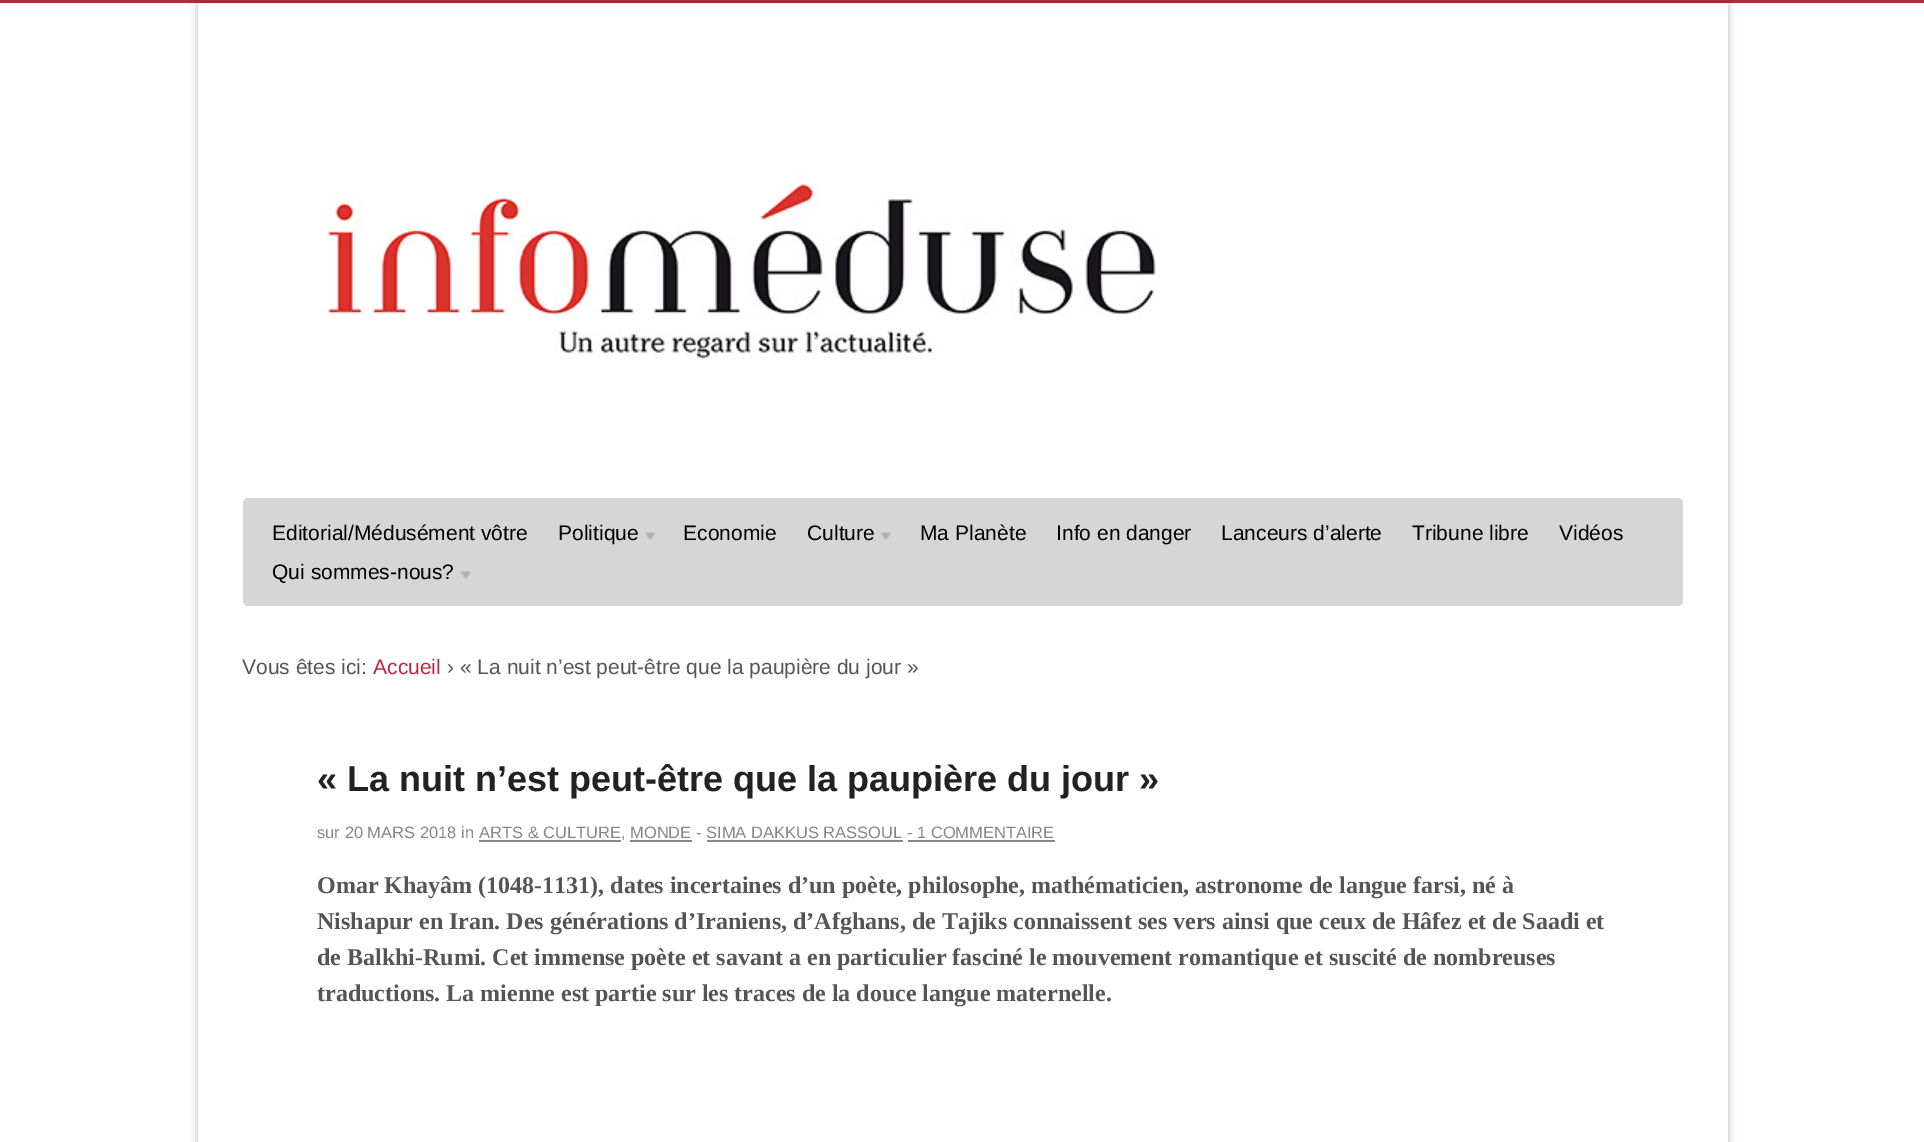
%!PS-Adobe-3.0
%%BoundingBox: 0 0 1924 1142
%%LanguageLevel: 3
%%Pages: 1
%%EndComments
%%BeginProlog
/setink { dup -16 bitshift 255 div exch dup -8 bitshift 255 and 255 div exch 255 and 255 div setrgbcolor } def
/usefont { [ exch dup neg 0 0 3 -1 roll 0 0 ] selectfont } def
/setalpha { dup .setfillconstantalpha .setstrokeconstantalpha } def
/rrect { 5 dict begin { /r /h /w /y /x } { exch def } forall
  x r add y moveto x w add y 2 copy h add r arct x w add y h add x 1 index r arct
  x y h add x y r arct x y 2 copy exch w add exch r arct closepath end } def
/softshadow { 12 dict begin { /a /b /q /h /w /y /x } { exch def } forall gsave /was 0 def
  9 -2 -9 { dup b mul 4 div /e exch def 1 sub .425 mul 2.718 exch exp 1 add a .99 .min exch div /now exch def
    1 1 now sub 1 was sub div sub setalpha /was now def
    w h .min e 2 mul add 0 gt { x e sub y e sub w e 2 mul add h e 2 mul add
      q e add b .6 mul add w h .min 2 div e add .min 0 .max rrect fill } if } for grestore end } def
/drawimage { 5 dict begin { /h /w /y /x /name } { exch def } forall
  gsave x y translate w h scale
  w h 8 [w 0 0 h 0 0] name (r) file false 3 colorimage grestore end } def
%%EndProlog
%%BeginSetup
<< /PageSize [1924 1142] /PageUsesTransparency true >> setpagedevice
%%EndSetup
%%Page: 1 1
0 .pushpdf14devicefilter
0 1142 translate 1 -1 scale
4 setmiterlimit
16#FFFFFF setink
0 0 1924 1142 rectfill
16#BA263C setink
0 0 1924 3 rectfill
gsave
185 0 moveto 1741 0 lineto 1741 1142 lineto 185 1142 lineto closepath 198 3 moveto 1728 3 lineto 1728 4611 lineto 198 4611 lineto closepath eoclip newpath
16#000000 setink
198 5 1530 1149 0 4 0.3 softshadow
grestore
(img1.raw) 327 174 829 185 drawimage
16#D6D6D6 setink
243 498 1440 108 5 rrect fill
/LiberationSans-Regular 21 usefont
16#000000 setink
272 540 moveto (Editorial/Médusément vôtre) show
558 540 moveto (Politique) show
(img2.raw) 645 532 11 8 drawimage
683 540 moveto (Economie) show
807 540 moveto (Culture) show
(img3.raw) 880 532 11 8 drawimage
[
    [(Ma Planète) 920 540]
    [(Info en danger) 1056 540]
    [(Lanceurs d’alerte) 1221 540]
    [(Tribune libre) 1412 540]
    [(Vidéos) 1559 540]
    [(Qui sommes-nous?) 272 579]
] { aload pop moveto show } forall
(img3.raw) 460 571 11 8 drawimage
16#555555 setink
242 674 moveto (Vous êtes ici:) show
16#BA263C setink
373 674 moveto (Accueil) show
16#555555 setink
447 674 moveto (› « La nuit n’est peut-être que la paupière du jour ») show
/LiberationSans-Bold 36 usefont
16#222222 setink
317 791 moveto (« La nuit n’est peut-être que la paupière du jour ») show
/LiberationSans-Regular 16.5 usefont
16#868686 setink
[
    [(sur 20 MARS 2018 in) 317 838]
    [(ARTS & CULTURE) 479 838]
    [(MONDE) 630 838]
    [(-) 696 838]
    [(SIMA DAKKUS RASSOUL - 1 COMMENTAIRE) 706 838]
] { aload pop moveto show } forall
16#888888 setink
707 840 196 2 rectfill
16#868686 setink
621 838 moveto (,) show
[
    [479 840 142 2 16#888888]
    [630 840 62 2 16#888888]
    [908 840 147 2 16#888888]
] { aload pop setink rectfill } forall
/LiberationSerif-Bold 24 usefont
16#555555 setink
[
    [(Omar Khayâm \(1048-1131\), dates incertaines d’un poète, philosophe, mathématicien, astronome de langue farsi, né à) 317 893]
    [(Nishapur en Iran. Des générations d’Iraniens, d’Afghans, de Tajiks connaissent ses vers ainsi que ceux de Hâfez et de Saadi et) 317 929]
    [(de Balkhi-Rumi. Cet immense poète et savant a en particulier fasciné le mouvement romantique et suscité de nombreuses) 317 965]
    [(traductions. La mienne est partie sur les traces de la douce langue maternelle.) 317 1001]
] { aload pop moveto show } forall
.poppdf14devicefilter showpage
%%EOF
